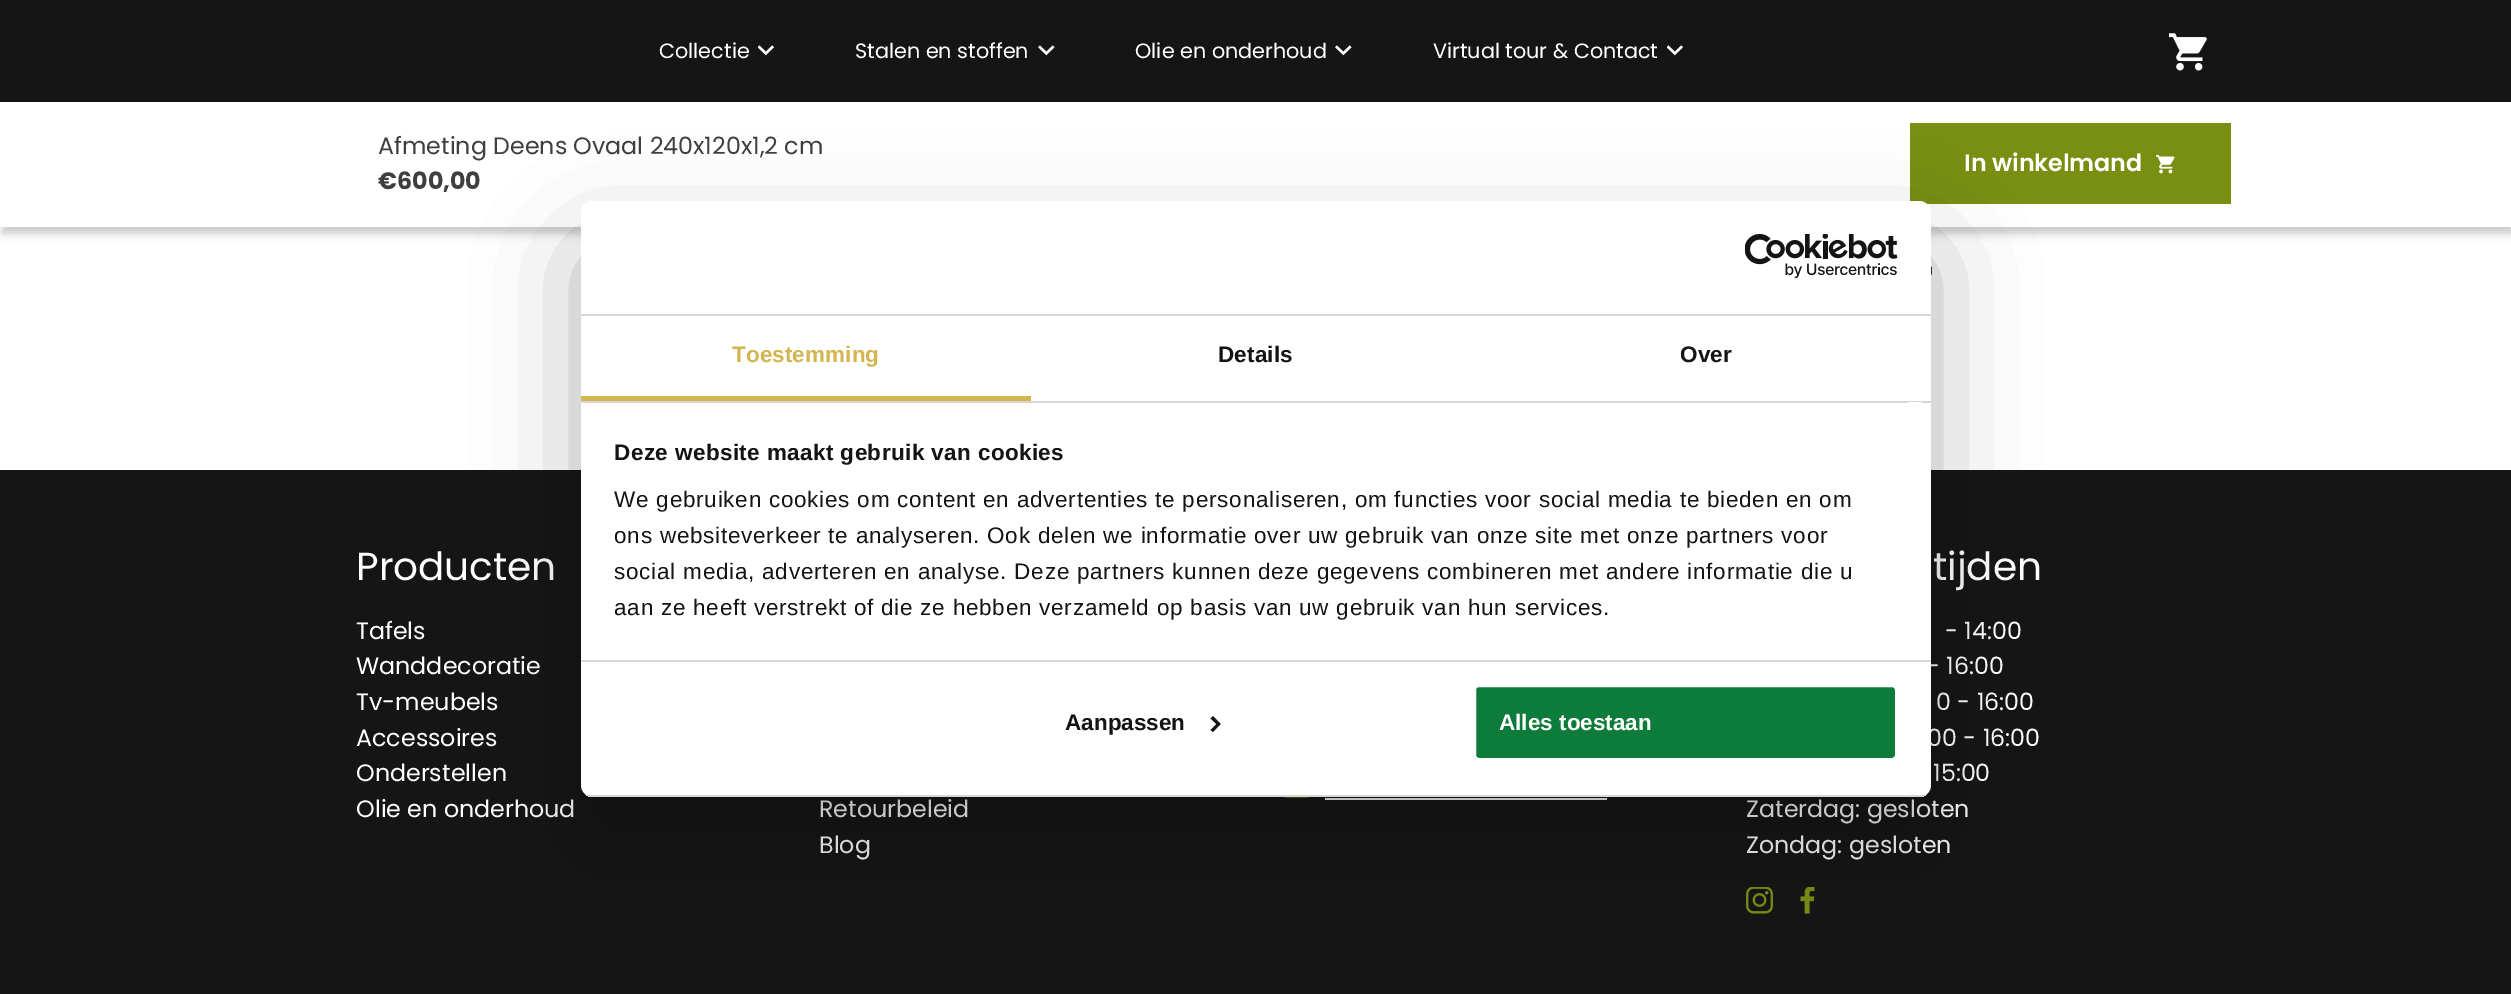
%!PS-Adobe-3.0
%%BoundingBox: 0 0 2511 994
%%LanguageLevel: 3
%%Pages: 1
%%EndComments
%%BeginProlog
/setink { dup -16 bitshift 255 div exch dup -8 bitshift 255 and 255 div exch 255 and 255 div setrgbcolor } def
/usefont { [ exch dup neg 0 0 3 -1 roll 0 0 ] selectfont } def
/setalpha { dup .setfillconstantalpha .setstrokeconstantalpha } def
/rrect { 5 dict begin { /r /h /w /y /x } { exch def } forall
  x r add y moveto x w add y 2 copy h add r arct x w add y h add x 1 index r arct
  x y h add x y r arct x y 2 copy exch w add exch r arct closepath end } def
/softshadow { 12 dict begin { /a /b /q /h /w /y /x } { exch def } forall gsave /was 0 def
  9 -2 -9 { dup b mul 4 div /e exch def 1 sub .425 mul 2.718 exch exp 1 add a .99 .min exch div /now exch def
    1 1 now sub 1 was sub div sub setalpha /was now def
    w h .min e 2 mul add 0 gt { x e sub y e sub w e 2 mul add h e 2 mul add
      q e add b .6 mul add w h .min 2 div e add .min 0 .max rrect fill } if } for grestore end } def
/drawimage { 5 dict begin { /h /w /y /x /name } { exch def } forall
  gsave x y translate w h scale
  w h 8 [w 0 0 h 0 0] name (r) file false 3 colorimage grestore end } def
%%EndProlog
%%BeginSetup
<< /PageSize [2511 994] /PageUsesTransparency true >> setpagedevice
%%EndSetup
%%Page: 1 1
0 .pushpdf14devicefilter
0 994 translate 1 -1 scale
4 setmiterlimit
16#FFFFFF setink
0 0 2511 994 rectfill
16#000000 setink
2 110 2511 124 0 4 0.2 softshadow
16#151515 setink
0 0 2511 102 rectfill
/Poppins-Regular 20.75 usefont
16#FFFFFF setink
659 58 moveto (Collectie) show
(img1.raw) 758 45 16 11 drawimage
855 58 moveto (Stalen en stoffen) show
(img2.raw) 1038 45 17 11 drawimage
1135 58 moveto (Olie en onderhoud) show
(img2.raw) 1335 45 17 11 drawimage
1433 58 moveto (Virtual tour & Contact) show
(img1.raw) 1667 45 16 11 drawimage
(img3.raw) 2169 33 38 38 drawimage
0 103 2511 124 rectfill
/Poppins-Regular 23.75 usefont
16#3F3F3F setink
378 154 moveto (Afmeting Deens Ovaal 240x120x1,2 cm) show
/Poppins-Bold 23.75 usefont
378 189 moveto (€600,00) show
16#788F12 setink
1910 123 321 81 rectfill
/Poppins-SemiBold 23.75 usefont
16#FFFFFF setink
1964 171 moveto (In winkelmand) show
(img4.raw) 2156 155 19 19 drawimage
(img5.raw) 1931 266 1 10 drawimage
16#151515 setink
0 470 2511 524 rectfill
/Poppins-Regular 39 usefont
16#FFFFFF setink
356 580 moveto (Producten) show
/Poppins-Regular 23.75 usefont
[
    [(Tafels) 356 639]
    [(Wanddecoratie) 356 674]
    [(Tv-meubels) 356 710]
    [(Accessoires) 356 746]
    [(Onderstellen) 356 781]
    [(Olie en onderhoud) 356 817]
    [(Retourbeleid) 819 817]
    [(Blog) 819 853]
] { aload pop moveto show } forall
(img6.raw) 1284 797 26 1 drawimage
1325 798 282 2 rectfill
/Poppins-Regular 39 usefont
1933 580 moveto (tijden) show
/Poppins-Regular 23.75 usefont
[
    [(- 14:00) 1945 639]
    [(- 16:00) 1927 674]
    [(0 - 16:00) 1936 710]
    [(00 - 16:00) 1927 746]
    [(15:00) 1933 781]
    [(Zaterdag: gesloten) 1746 817]
    [(Zondag: gesloten) 1746 853]
] { aload pop moveto show } forall
(img7.raw) 1746 887 27 27 drawimage
(img8.raw) 1800 887 15 27 drawimage
16#000000 setink
581 249 1350 596 12 51 0.3 softshadow
16#FFFFFF setink
581 201 1350 596 12 rrect fill
16#D6D6D6 setink
581 314 1350 2 rectfill
(img9.raw) 1745 234 153 45 drawimage
581 401 1350 2 rectfill
16#D4B651 setink
581 396 450 5 rectfill
/LiberationSans-Bold 22.5 usefont
732 362 moveto 0.1 0 (Toestemming) ashow
16#141414 setink
1218 362 moveto 0.1 0 (Details) ashow
1680 362 moveto 0.1 0 (Over) ashow
16#D6D6D6 setink
581 660 1350 2 rectfill
16#FFFFFF setink
1908 402 14 1 rectfill
16#141414 setink
614 460 moveto 0.4 0 (Deze website maakt gebruik van cookies) ashow
/LiberationSans-Regular 22.5 usefont
614 507 moveto 0.75 0 (We gebruiken cookies om content en advertenties te personaliseren, om functies voor social media te bieden en om) ashow
614 543 moveto 0.75 0 (ons websiteverkeer te analyseren. Ook delen we informatie over uw gebruik van onze site met onze partners voor) ashow
614 579 moveto 0.75 0 (social media, adverteren en analyse. Deze partners kunnen deze gegevens combineren met andere informatie die u) ashow
614 615 moveto 0.75 0 (aan ze heeft verstrekt of die ze hebben verzameld op basis van uw gebruik van hun services.) ashow
gsave
581 201 1350 596 12 rrect clip newpath
16#D6D6D6 setink
581 795 1350 2 rectfill
grestore
/LiberationSans-Bold 22.5 usefont
1065 730 moveto (Aanpassen) show
1213 716 moveto 1220.5 724 lineto 1218.5 726 lineto 1210.5 718.5 lineto closepath fill
1218.5 722 moveto 1220.5 724 lineto 1213 732 lineto 1210.5 730 lineto closepath fill
16#0D7B39 setink
1474.5 685.5 422 74 4.5 rrect gsave fill grestore
16#FFFFFF setink
3 setlinewidth
stroke
1499 730 moveto (Alles toestaan) show
.poppdf14devicefilter showpage
%%EOF
